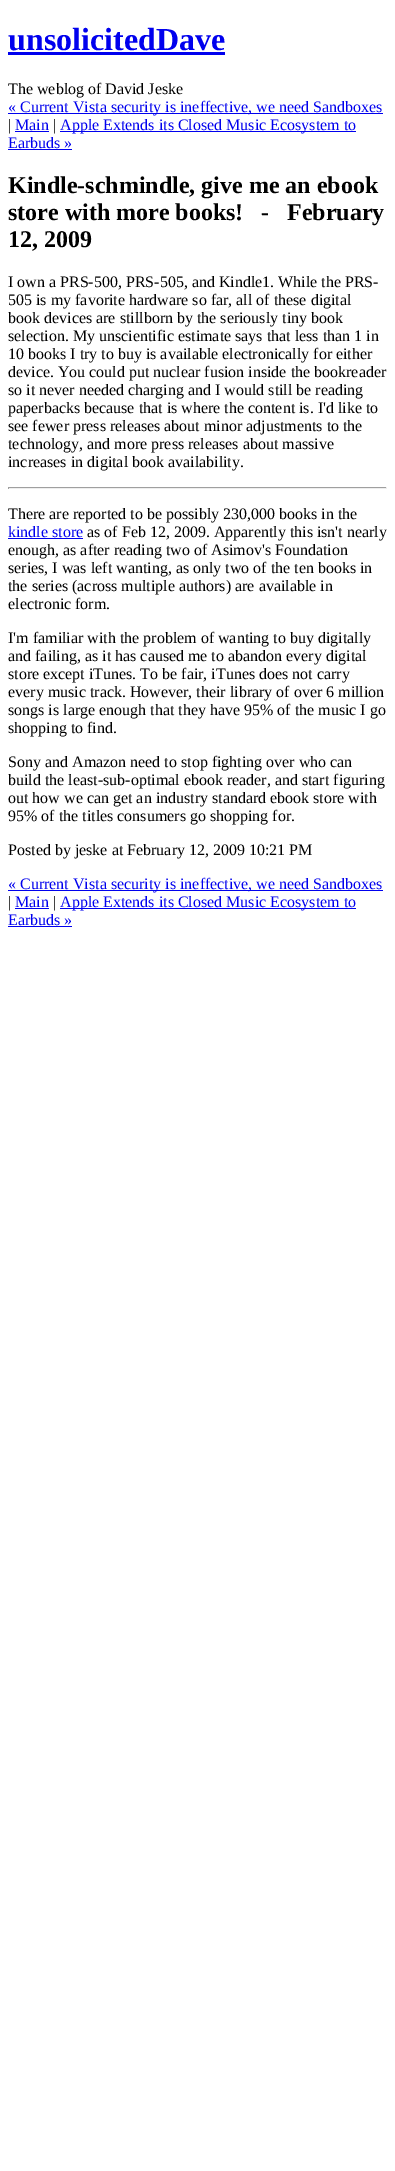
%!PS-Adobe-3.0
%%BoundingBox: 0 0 395 2171
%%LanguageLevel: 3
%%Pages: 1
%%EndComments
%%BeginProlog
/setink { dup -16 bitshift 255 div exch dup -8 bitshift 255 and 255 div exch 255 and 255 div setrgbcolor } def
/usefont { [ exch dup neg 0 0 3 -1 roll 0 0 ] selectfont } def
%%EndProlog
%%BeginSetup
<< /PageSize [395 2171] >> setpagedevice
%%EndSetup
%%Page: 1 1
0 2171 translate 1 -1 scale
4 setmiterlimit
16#FFFFFF setink
0 0 395 2171 rectfill
/LiberationSerif-Bold 32 usefont
16#0000EE setink
8 50 moveto (unsolicitedDave) show
8 52 217 3 rectfill
/LiberationSerif-Regular 16 usefont
16#000000 setink
8 94 moveto (The weblog of David Jeske) show
16#0000EE setink
8 113 375 1 rectfill
8 112 moveto (« Current Vista security is ineffective, we need Sandboxes) show
16#000000 setink
8 130 moveto (|) show
16#0000EE setink
15 130 moveto (Main) show
15 131 34 1 rectfill
16#000000 setink
53 130 moveto (|) show
16#0000EE setink
60 131 296 1 rectfill
60 130 moveto (Apple Extends its Closed Music Ecosystem to) show
8 148 moveto (Earbuds ») show
8 149 64 1 rectfill
/LiberationSerif-Bold 24 usefont
16#000000 setink
[
    [(Kindle-schmindle, give me an ebook) 8 193]
    [(store with more books!) 8 220]
    [(-) 261 220]
    [(February) 287 220]
    [(12, 2009) 8 247]
] { aload pop moveto show } forall
/LiberationSerif-Regular 16 usefont
[
    [(I own a PRS-500, PRS-505, and Kindle1. While the PRS-) 8 287]
    [(505 is my favorite hardware so far, all of these digital) 8 305]
    [(book devices are stillborn by the seriously tiny book) 8 323]
    [(selection. My unscientific estimate says that less than 1 in) 8 341]
    [(10 books I try to buy is available electronically for either) 8 359]
    [(device. You could put nuclear fusion inside the bookreader) 8 377]
    [(so it never needed charging and I would still be reading) 8 395]
    [(paperbacks because that is where the content is. I'd like to) 8 413]
    [(see fewer press releases about minor adjustments to the) 8 431]
    [(technology, and more press releases about massive) 8 449]
    [(increases in digital book availability.) 8 467]
] { aload pop moveto show } forall
[
    [8 487 379 1 16#9F9F9F]
    [386 487 1 2 16#EEEEEE]
    [8 488 379 1 16#EEEEEE]
    [8 487 1 2 16#9F9F9F]
] { aload pop setink rectfill } forall
16#000000 setink
8 519 moveto (There are reported to be possibly 230,000 books in the) show
16#0000EE setink
8 537 moveto (kindle store) show
8 538 75 1 rectfill
16#000000 setink
[
    [(as of Feb 12, 2009. Apparently this isn't nearly) 87 537]
    [(enough, as after reading two of Asimov's Foundation) 8 555]
    [(series, I was left wanting, as only two of the ten books in) 8 573]
    [(the series \(across multiple authors\) are available in) 8 591]
    [(electronic form.) 8 609]
    [(I'm familiar with the problem of wanting to buy digitally) 8 643]
    [(and failing, as it has caused me to abandon every digital) 8 661]
    [(store except iTunes. To be fair, iTunes does not carry) 8 679]
    [(every music track. However, their library of over 6 million) 8 697]
    [(songs is large enough that they have 95% of the music I go) 8 715]
    [(shopping to find.) 8 733]
    [(Sony and Amazon need to stop fighting over who can) 8 767]
    [(build the least-sub-optimal ebook reader, and start figuring) 8 785]
    [(out how we can get an industry standard ebook store with) 8 803]
    [(95% of the titles consumers go shopping for.) 8 821]
    [(Posted by jeske at February 12, 2009 10:21 PM) 8 855]
] { aload pop moveto show } forall
16#0000EE setink
8 890 375 1 rectfill
8 889 moveto (« Current Vista security is ineffective, we need Sandboxes) show
16#000000 setink
8 907 moveto (|) show
16#0000EE setink
15 907 moveto (Main) show
15 908 34 1 rectfill
16#000000 setink
53 907 moveto (|) show
16#0000EE setink
60 908 296 1 rectfill
60 907 moveto (Apple Extends its Closed Music Ecosystem to) show
8 925 moveto (Earbuds ») show
8 926 64 1 rectfill
showpage
%%EOF
